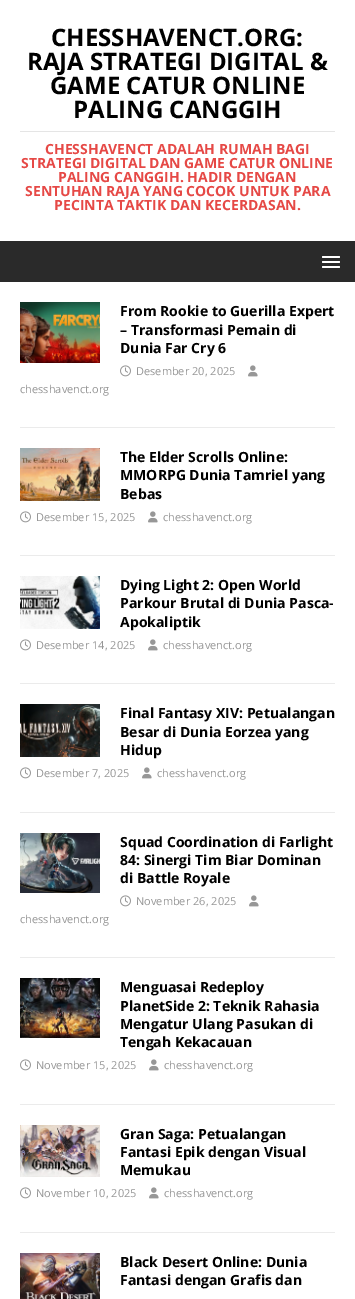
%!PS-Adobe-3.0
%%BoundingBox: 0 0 355 1299
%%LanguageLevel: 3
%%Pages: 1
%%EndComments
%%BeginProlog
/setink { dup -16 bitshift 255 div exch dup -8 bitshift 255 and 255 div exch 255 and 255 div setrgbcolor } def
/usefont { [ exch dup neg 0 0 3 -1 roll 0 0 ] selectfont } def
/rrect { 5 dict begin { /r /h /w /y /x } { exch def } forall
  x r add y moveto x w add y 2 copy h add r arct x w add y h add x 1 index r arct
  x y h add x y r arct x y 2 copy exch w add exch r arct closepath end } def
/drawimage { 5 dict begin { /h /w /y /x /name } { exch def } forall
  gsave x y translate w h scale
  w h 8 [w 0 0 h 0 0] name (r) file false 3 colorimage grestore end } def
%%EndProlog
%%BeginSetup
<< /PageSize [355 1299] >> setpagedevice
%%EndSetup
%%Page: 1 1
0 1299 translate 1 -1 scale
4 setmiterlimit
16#FFFFFF setink
0 0 355 1299 rectfill
/OpenSans-Bold 24 usefont
16#000000 setink
[
    [(CHESSHAVENCT.ORG:) 51 46]
    [(RAJA STRATEGI DIGITAL &) 27 70]
    [(GAME CATUR ONLINE) 50 94]
    [(PALING CANGGIH) 73 118]
] { aload pop moveto show } forall
16#E5E5E5 setink
20 131 315 1 rectfill
/OpenSans-Bold 14 usefont
16#E64946 setink
[
    [(CHESSHAVENCT ADALAH RUMAH BAGI) 45 154]
    [(STRATEGI DIGITAL DAN GAME CATUR ONLINE) 21 168]
    [(PALING CANGGIH. HADIR DENGAN) 58 182]
    [(SENTUHAN RAJA YANG COCOK UNTUK PARA) 25 196]
    [(PECINTA TAKTIK DAN KECERDASAN.) 54 210]
] { aload pop moveto show } forall
16#2A2A2A setink
0 241 355 41 rectfill
16#FFFFFF setink
322 256 18 2 1 rrect fill
322 261 18 2 1 rrect fill
322 266 18 2 1 rrect fill
16#EBEBEB setink
20 427 315 1 rectfill
(img1.raw) 20 302 80 61 drawimage
16#000000 setink
[
    [(From Rookie to Guerilla Expert) 120 316]
    [(– Transformasi Pemain di) 120 335]
    [(Dunia Far Cry 6) 120 353]
] { aload pop moveto show } forall
(img2.raw) 120 365 11 12 drawimage
/OpenSans-Regular 11 usefont
16#979797 setink
136 375 moveto (Desember 20, 2025) show
(img3.raw) 248 365 10 12 drawimage
20 393 moveto (chesshavenct.org) show
16#EBEBEB setink
20 555 315 1 rectfill
(img4.raw) 20 448 80 53 drawimage
/OpenSans-Bold 14 usefont
16#000000 setink
[
    [(The Elder Scrolls Online:) 120 462]
    [(MMORPG Dunia Tamriel yang) 120 480]
    [(Bebas) 120 499]
] { aload pop moveto show } forall
(img2.raw) 20 511 11 12 drawimage
/OpenSans-Regular 11 usefont
16#979797 setink
36 521 moveto (Desember 15, 2025) show
(img3.raw) 148 511 10 12 drawimage
163 521 moveto (chesshavenct.org) show
16#EBEBEB setink
20 683 315 1 rectfill
(img5.raw) 20 576 80 53 drawimage
/OpenSans-Bold 14 usefont
16#000000 setink
[
    [(Dying Light 2: Open World) 120 590]
    [(Parkour Brutal di Dunia Pasca-) 120 608]
    [(Apokaliptik) 120 627]
] { aload pop moveto show } forall
(img2.raw) 20 639 11 12 drawimage
/OpenSans-Regular 11 usefont
16#979797 setink
36 649 moveto (Desember 14, 2025) show
(img3.raw) 148 639 10 12 drawimage
163 649 moveto (chesshavenct.org) show
16#EBEBEB setink
20 812 315 1 rectfill
(img6.raw) 20 704 80 53 drawimage
/OpenSans-Bold 14 usefont
16#000000 setink
[
    [(Final Fantasy XIV: Petualangan) 120 718]
    [(Besar di Dunia Eorzea yang) 120 737]
    [(Hidup) 120 755]
] { aload pop moveto show } forall
(img2.raw) 20 767 11 12 drawimage
/OpenSans-Regular 11 usefont
16#979797 setink
36 777 moveto (Desember 7, 2025) show
(img3.raw) 142 767 10 12 drawimage
157 777 moveto (chesshavenct.org) show
16#EBEBEB setink
20 957 315 1 rectfill
(img7.raw) 20 833 80 60 drawimage
/OpenSans-Bold 14 usefont
16#000000 setink
[
    [(Squad Coordination di Farlight) 120 847]
    [(84: Sinergi Tim Biar Dominan) 120 865]
    [(di Battle Royale) 120 883]
] { aload pop moveto show } forall
(img2.raw) 120 895 11 12 drawimage
/OpenSans-Regular 11 usefont
16#979797 setink
136 905 moveto (November 26, 2025) show
(img3.raw) 249 895 10 12 drawimage
20 923 moveto (chesshavenct.org) show
16#EBEBEB setink
20 1104 315 1 rectfill
(img8.raw) 20 978 80 60 drawimage
/OpenSans-Bold 14 usefont
16#000000 setink
[
    [(Menguasai Redeploy) 120 992]
    [(PlanetSide 2: Teknik Rahasia) 120 1011]
    [(Mengatur Ulang Pasukan di) 120 1029]
    [(Tengah Kekacauan) 120 1047]
] { aload pop moveto show } forall
(img2.raw) 20 1059 11 12 drawimage
/OpenSans-Regular 11 usefont
16#979797 setink
36 1069 moveto (November 15, 2025) show
(img3.raw) 149 1059 10 12 drawimage
164 1069 moveto (chesshavenct.org) show
16#EBEBEB setink
20 1232 315 1 rectfill
(img9.raw) 20 1125 80 52 drawimage
/OpenSans-Bold 14 usefont
16#000000 setink
[
    [(Gran Saga: Petualangan) 120 1139]
    [(Fantasi Epik dengan Visual) 120 1157]
    [(Memukau) 120 1175]
] { aload pop moveto show } forall
(img2.raw) 20 1187 11 12 drawimage
/OpenSans-Regular 11 usefont
16#979797 setink
36 1197 moveto (November 10, 2025) show
(img3.raw) 149 1187 10 12 drawimage
164 1197 moveto (chesshavenct.org) show
(img10.raw) 20 1253 80 46 drawimage
/OpenSans-Bold 14 usefont
16#000000 setink
120 1267 moveto (Black Desert Online: Dunia) show
120 1285 moveto (Fantasi dengan Grafis dan) show
showpage
%%EOF
